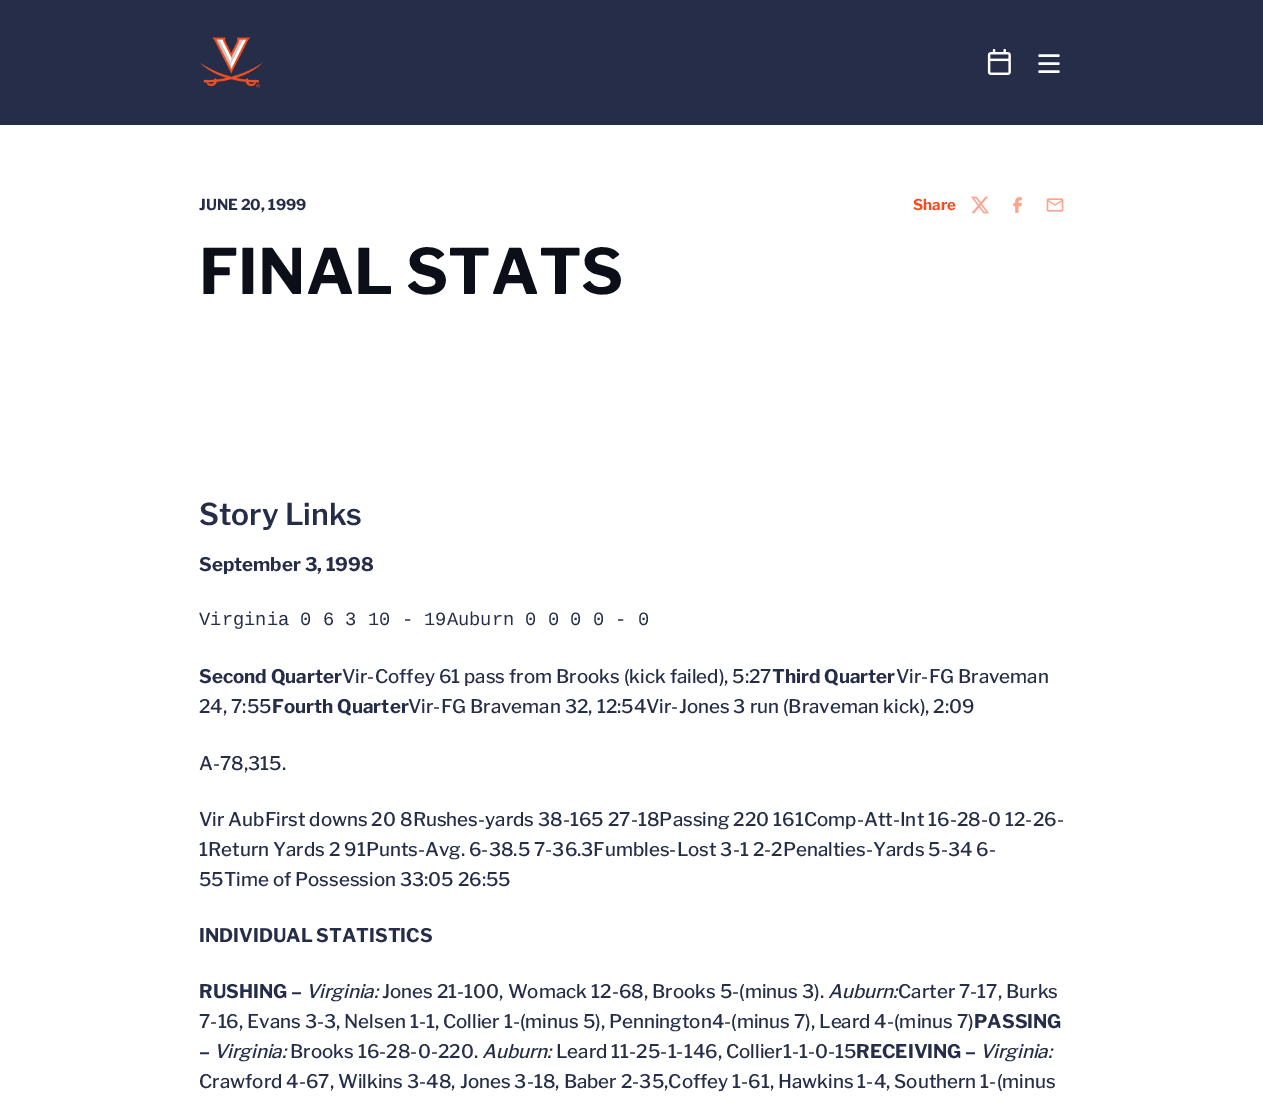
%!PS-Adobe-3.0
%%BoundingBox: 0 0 1263 1113
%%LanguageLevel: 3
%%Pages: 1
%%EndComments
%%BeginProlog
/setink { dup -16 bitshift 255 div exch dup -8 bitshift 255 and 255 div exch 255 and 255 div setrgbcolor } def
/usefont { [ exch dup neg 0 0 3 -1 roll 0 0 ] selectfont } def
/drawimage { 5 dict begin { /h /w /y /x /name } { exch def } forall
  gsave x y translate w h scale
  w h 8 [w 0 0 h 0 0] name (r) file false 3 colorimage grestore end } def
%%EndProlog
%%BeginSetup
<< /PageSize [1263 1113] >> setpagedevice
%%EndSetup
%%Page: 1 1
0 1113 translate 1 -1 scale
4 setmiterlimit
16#FFFFFF setink
0 0 1263 1113 rectfill
16#252D48 setink
0 0 1263 125 rectfill
(img1.raw) 200 37 63 51 drawimage
(img2.raw) 987 49 24 26 drawimage
16#FFFFFF setink
2.4 setlinewidth
1 setlinecap
1039.5 55.5 moveto 1058.5 55.5 lineto 1039.5 63.5 moveto 1058.5 63.5 lineto 1058.5 71.5 moveto 1039.5 71.5 lineto stroke
/LibreFranklin-Bold 15 usefont
16#252D48 setink
199 210 moveto (JUNE 20, 1999) show
16#F84C1E setink
913 210 moveto (Share) show
(img3.raw) 971 196 18 18 drawimage
(img4.raw) 1013 197 9 16 drawimage
(img5.raw) 1046 198 18 14 drawimage
/LibreFranklin-Bold 62.5 usefont
16#0C0F18 setink
199 294 moveto (FINAL STATS) show
/LibreFranklin-SemiBold 30 usefont
16#252D48 setink
199 525 moveto (Story Links) show
/LibreFranklin-Bold 18.75 usefont
199 571 moveto (September 3, 1998) show
/LiberationMono-Regular 18.75 usefont
199 625 moveto (Virginia 0 6 3 10 - 19Auburn 0 0 0 0 - 0) show
/LibreFranklin-Bold 18.75 usefont
199 683 moveto (Second Quarter) show
/LibreFranklin-Medium 18.75 usefont
342 683 moveto (Vir-Coffey 61 pass from Brooks \(kick failed\), 5:27) show
/LibreFranklin-Bold 18.75 usefont
772 683 moveto (Third Quarter) show
/LibreFranklin-Medium 18.75 usefont
896 683 moveto (Vir-FG Braveman) show
199 713 moveto (24, 7:55) show
/LibreFranklin-Bold 18.75 usefont
272 713 moveto (Fourth Quarter) show
/LibreFranklin-Medium 18.75 usefont
[
    [(Vir-FG Braveman 32, 12:54Vir-Jones 3 run \(Braveman kick\), 2:09) 408 713]
    [(A-78,315.) 199 770]
    [(Vir AubFirst downs 20 8Rushes-yards 38-165 27-18Passing 220 161Comp-Att-Int 16-28-0 12-26-) 199 826]
    [(1Return Yards 2 91Punts-Avg. 6-38.5 7-36.3Fumbles-Lost 3-1 2-2Penalties-Yards 5-34 6-) 199 856]
    [(55Time of Possession 33:05 26:55) 199 886]
] { aload pop moveto show } forall
/LibreFranklin-Bold 18.75 usefont
199 942 moveto (INDIVIDUAL STATISTICS) show
199 998 moveto (RUSHING –) show
/LibreFranklin-MediumItalic 18.75 usefont
306 998 moveto (Virginia:) show
/LibreFranklin-Medium 18.75 usefont
382 998 moveto (Jones 21-100, Womack 12-68, Brooks 5-\(minus 3\).) show
/LibreFranklin-MediumItalic 18.75 usefont
828 998 moveto (Auburn:) show
/LibreFranklin-Medium 18.75 usefont
898 998 moveto (Carter 7-17, Burks) show
199 1028 moveto (7-16, Evans 3-3, Nelsen 1-1, Collier 1-\(minus 5\), Pennington4-\(minus 7\), Leard 4-\(minus 7\)) show
/LibreFranklin-Bold 18.75 usefont
974 1028 moveto (PASSING) show
199 1058 moveto (–) show
/LibreFranklin-MediumItalic 18.75 usefont
214 1058 moveto (Virginia:) show
/LibreFranklin-Medium 18.75 usefont
290 1058 moveto (Brooks 16-28-0-220.) show
/LibreFranklin-MediumItalic 18.75 usefont
482 1058 moveto (Auburn:) show
/LibreFranklin-Medium 18.75 usefont
556 1058 moveto (Leard 11-25-1-146, Collier1-1-0-15) show
/LibreFranklin-Bold 18.75 usefont
856 1058 moveto (RECEIVING –) show
/LibreFranklin-MediumItalic 18.75 usefont
980 1058 moveto (Virginia:) show
/LibreFranklin-Medium 18.75 usefont
199 1088 moveto (Crawford 4-67, Wilkins 3-48, Jones 3-18, Baber 2-35,Coffey 1-61, Hawkins 1-4, Southern 1-\(minus) show
showpage
%%EOF
